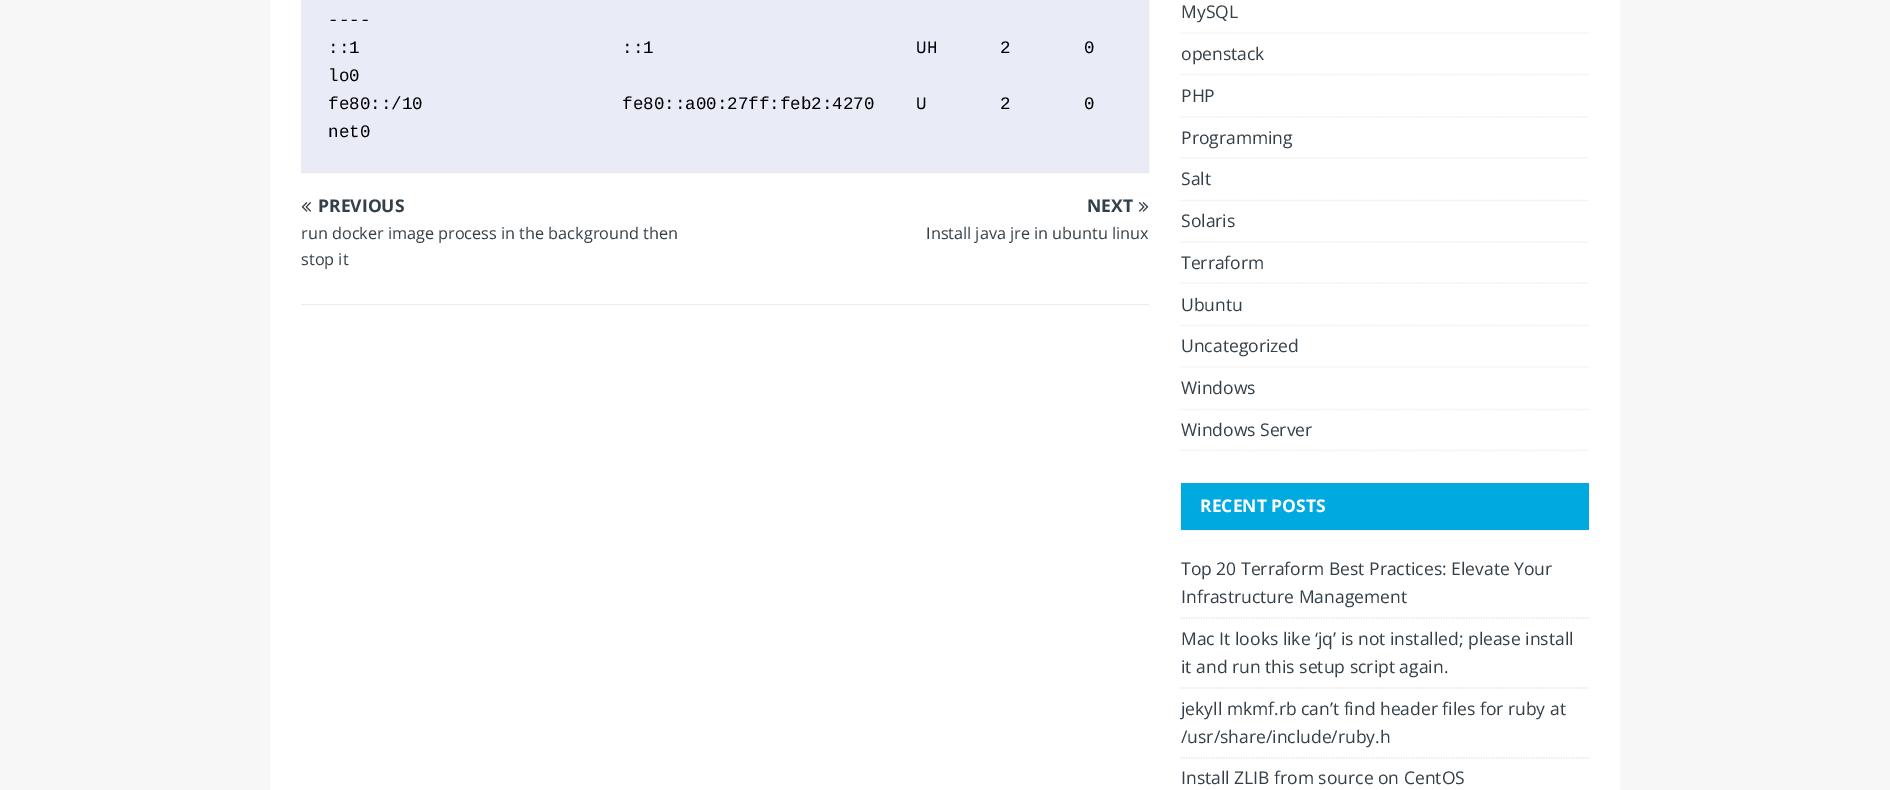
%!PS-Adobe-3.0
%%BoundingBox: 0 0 1890 790
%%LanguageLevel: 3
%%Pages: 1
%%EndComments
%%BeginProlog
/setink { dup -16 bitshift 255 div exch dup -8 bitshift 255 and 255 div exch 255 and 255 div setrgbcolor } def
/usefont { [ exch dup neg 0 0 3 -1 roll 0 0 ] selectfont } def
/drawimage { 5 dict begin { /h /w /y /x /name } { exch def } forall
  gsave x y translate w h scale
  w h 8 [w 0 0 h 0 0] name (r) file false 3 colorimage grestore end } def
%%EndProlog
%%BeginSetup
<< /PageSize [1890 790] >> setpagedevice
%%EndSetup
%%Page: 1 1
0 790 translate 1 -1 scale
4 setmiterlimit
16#F7F7F7 setink
0 0 1890 790 rectfill
16#FFFFFF setink
270 0 1350 790 rectfill
16#E9ECF6 setink
301.5 -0.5 moveto 1148.5 -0.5 lineto 1148.5 172.5 lineto 301.5 172.5 lineto closepath gsave fill grestore
16#EBEBEB setink
stroke
/LiberationMono-Regular 17.5 usefont
16#000000 setink
[
    [(----) 328 25]
    [(::1                         ::1                         UH      2       0) 328 53]
    [(lo0) 328 81]
    [(fe80::/10                   fe80::a00:27ff:feb2:4270    U       2       0) 328 109]
    [(net0) 328 137]
] { aload pop moveto show } forall
16#EBEBEB setink
301 304 848 1 rectfill
(img1.raw) 301 202 11 10 drawimage
/OpenSans-Bold 17.5 usefont
16#333F49 setink
318 212 moveto (PREVIOUS) show
/OpenSans-Regular 16.25 usefont
301 239 moveto (run docker image process in the background then) show
301 265 moveto (stop it) show
/OpenSans-Bold 17.5 usefont
1087 212 moveto (NEXT) show
(img2.raw) 1138 202 11 10 drawimage
/OpenSans-Regular 16.25 usefont
926 239 moveto (Install java jre in ubuntu linux) show
16#EBEBEB setink
1.2 setlinewidth
[1.25 1.25] 0 setdash
1181 33 moveto 1589 33 lineto stroke
/OpenSans-Regular 17.5 usefont
16#333F49 setink
1181 18 moveto (MySQL) show
16#EBEBEB setink
1181 74.5 moveto 1589 74.5 lineto stroke
16#333F49 setink
1181 60 moveto (openstack) show
16#EBEBEB setink
1181 117 moveto 1589 117 lineto stroke
16#333F49 setink
1181 102 moveto (PHP) show
16#EBEBEB setink
1181 158 moveto 1589 158 lineto stroke
16#333F49 setink
1181 144 moveto (Programming) show
16#EBEBEB setink
1181 200.5 moveto 1589 200.5 lineto stroke
16#333F49 setink
1181 185 moveto (Salt) show
16#EBEBEB setink
1181 242 moveto 1589 242 lineto stroke
16#333F49 setink
1181 227 moveto (Solaris) show
16#EBEBEB setink
1181 283 moveto 1589 283 lineto stroke
16#333F49 setink
1181 269 moveto (Terraform) show
16#EBEBEB setink
1181 325.5 moveto 1589 325.5 lineto stroke
16#333F49 setink
1181 311 moveto (Ubuntu) show
16#EBEBEB setink
1181 367 moveto 1589 367 lineto stroke
16#333F49 setink
1181 352 moveto (Uncategorized) show
16#EBEBEB setink
1181 409.5 moveto 1589 409.5 lineto stroke
16#333F49 setink
1181 394 moveto (Windows) show
gsave
1181 0 408 451 rectclip
16#EBEBEB setink
1181 450.5 moveto 1589 450.5 lineto stroke
grestore
1181 436 moveto (Windows Server) show
16#00AAE1 setink
1181 483 408 47 rectfill
/OpenSans-Bold 17.5 usefont
16#FFFFFF setink
1200 512 moveto (RECENT POSTS) show
16#E5E5E5 setink
1181 618 moveto 1589 618 lineto stroke
/OpenSans-Regular 17.5 usefont
16#333F49 setink
1181 575 moveto (Top 20 Terraform Best Practices: Elevate Your) show
1181 603 moveto (Infrastructure Management) show
16#E5E5E5 setink
1181 688 moveto 1589 688 lineto stroke
16#333F49 setink
1181 645 moveto (Mac It looks like ‘jq’ is not installed; please install) show
1181 673 moveto (it and run this setup script again.) show
16#E5E5E5 setink
1181 758 moveto 1589 758 lineto stroke
16#333F49 setink
[
    [(jekyll mkmf.rb can’t find header files for ruby at) 1181 715]
    [(/usr/share/include/ruby.h) 1181 743]
    [(Install ZLIB from source on CentOS) 1181 784]
] { aload pop moveto show } forall
showpage
%%EOF
